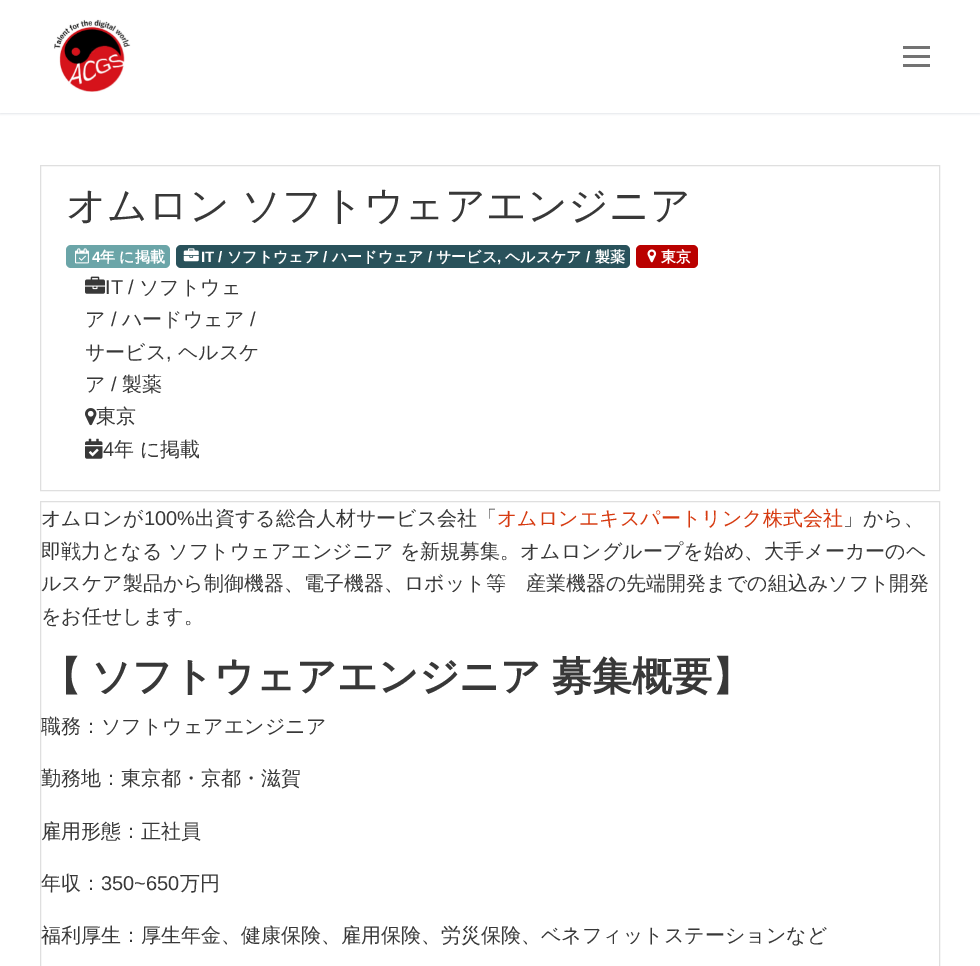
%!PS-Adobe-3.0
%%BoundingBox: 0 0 980 966
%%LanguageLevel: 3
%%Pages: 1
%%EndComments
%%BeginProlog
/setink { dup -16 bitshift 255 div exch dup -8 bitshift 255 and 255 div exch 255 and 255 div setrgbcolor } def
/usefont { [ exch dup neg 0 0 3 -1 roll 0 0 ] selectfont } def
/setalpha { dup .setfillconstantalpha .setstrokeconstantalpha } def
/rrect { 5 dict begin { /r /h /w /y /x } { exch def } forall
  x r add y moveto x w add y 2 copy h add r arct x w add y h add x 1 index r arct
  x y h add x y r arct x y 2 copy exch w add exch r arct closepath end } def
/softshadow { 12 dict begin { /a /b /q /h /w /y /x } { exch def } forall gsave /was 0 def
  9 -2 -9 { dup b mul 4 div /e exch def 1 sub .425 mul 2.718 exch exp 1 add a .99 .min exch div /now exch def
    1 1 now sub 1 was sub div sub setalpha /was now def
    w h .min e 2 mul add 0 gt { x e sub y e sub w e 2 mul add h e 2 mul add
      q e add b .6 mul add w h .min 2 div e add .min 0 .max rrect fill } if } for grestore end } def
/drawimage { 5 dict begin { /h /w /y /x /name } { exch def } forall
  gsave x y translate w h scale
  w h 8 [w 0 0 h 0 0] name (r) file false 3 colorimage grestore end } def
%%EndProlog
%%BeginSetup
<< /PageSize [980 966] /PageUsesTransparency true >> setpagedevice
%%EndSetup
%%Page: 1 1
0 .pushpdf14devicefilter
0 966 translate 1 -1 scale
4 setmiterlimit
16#FFFFFF setink
0 0 980 966 rectfill
16#E1E5EA setink
0 1 980 113 0 1 1 softshadow
16#FFFFFF setink
0 0 980 113 rectfill
(img1.raw) 54 19 77 73 drawimage
[
    [903 55 27 3 16#737373]
    [903 46 27 3 16#737373]
    [903 64 27 3 16#737373]
] { aload pop setink rectfill } forall
16#DFDFDF setink
40.5 165.5 899 325 rectstroke
/WenQuanYiZenHei-Medium 40 usefont
16#383838 setink
66 219 moveto -1 0 32 (オムロン ソフトウェアエンジニア) widthshow
16#6BA5A8 setink
66 245 104 23 5 rrect fill
(img2.raw) 75 248 14 16 drawimage
/LiberationSans-Bold 15 usefont
16#FFFFFF setink
92 262 moveto (4) show
/WenQuanYiZenHei-Bold 15 usefont
100 262 moveto (年 に掲載) show
16#29525B setink
176 245 454 23 5 rrect fill
(img3.raw) 183 248 16 14 drawimage
/LiberationSans-Bold 15 usefont
16#FFFFFF setink
201 262 moveto (IT /) show
/WenQuanYiZenHei-Bold 15 usefont
227 262 moveto (ソフトウェア) show
/LiberationSans-Bold 15 usefont
323 262 moveto (/) show
/WenQuanYiZenHei-Bold 15 usefont
332 262 moveto (ハードウェア) show
/LiberationSans-Bold 15 usefont
428 262 moveto (/) show
/WenQuanYiZenHei-Bold 15 usefont
436 262 moveto (サービス) show
/LiberationSans-Bold 15 usefont
497 262 moveto (,) show
/WenQuanYiZenHei-Bold 15 usefont
505 262 moveto (ヘルスケア) show
/LiberationSans-Bold 15 usefont
586 262 moveto (/) show
/WenQuanYiZenHei-Bold 15 usefont
595 262 moveto (製薬) show
16#BA0100 setink
636 245 62 23 5 rrect fill
(img4.raw) 647 249 10 14 drawimage
16#FFFFFF setink
661 262 moveto (東京) show
(img5.raw) 85 276 20 18 drawimage
/LiberationSans-Regular 20 usefont
16#383838 setink
105 294 moveto (IT /) show
/WenQuanYiZenHei-Medium 20 usefont
139 294 moveto (ソフトウェ) show
85 326 moveto (ア) show
/LiberationSans-Regular 20 usefont
111 326 moveto (/) show
/WenQuanYiZenHei-Medium 20 usefont
122 326 moveto (ハードウェア) show
/LiberationSans-Regular 20 usefont
250 326 moveto (/) show
/WenQuanYiZenHei-Medium 20 usefont
85 359 moveto (サービス) show
/LiberationSans-Regular 20 usefont
166 359 moveto (,) show
/WenQuanYiZenHei-Medium 20 usefont
178 359 moveto (ヘルスケ) show
85 391 moveto (ア) show
/LiberationSans-Regular 20 usefont
111 391 moveto (/) show
/WenQuanYiZenHei-Medium 20 usefont
122 391 moveto (製薬) show
(img6.raw) 85 408 12 18 drawimage
96 423 moveto (東京) show
(img7.raw) 85 438 18 21 drawimage
/LiberationSans-Regular 20 usefont
103 456 moveto (4) show
/WenQuanYiZenHei-Medium 20 usefont
114 456 moveto (年 に掲載) show
16#DFDFDF setink
40.5 501.5 899 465 rectstroke
16#383838 setink
41 525 moveto (オムロンが) show
/LiberationSans-Regular 20 usefont
144 525 moveto (100%) show
/WenQuanYiZenHei-Medium 20 usefont
195 525 moveto (出資する総合人材サービス会社「) show
16#D63A10 setink
497 525 moveto (オムロンエキスパートリンク株式会社) show
16#383838 setink
[
    [(」から、) 843 525]
    [(即戦力となる ソフトウェアエンジニア を新規募集。オムロングループを始め、大手メーカーのヘ) 41 558]
    [(ルスケア製品から制御機器、電子機器、ロボット等　産業機器の先端開発までの組込みソフト開発) 41 590]
    [(をお任せします。) 41 623]
] { aload pop moveto show } forall
/WenQuanYiZenHei-Bold 40 usefont
41 690 moveto (【) show
91 690 moveto -1 0 32 (ソフトウェアエンジニア 募集概要】) widthshow
/WenQuanYiZenHei-Medium 20 usefont
[
    [(職務：ソフトウェアエンジニア) 41 733]
    [(勤務地：東京都・京都・滋賀) 41 785]
    [(雇用形態：正社員) 41 838]
    [(年収：) 41 890]
] { aload pop moveto show } forall
/LiberationSans-Regular 20 usefont
101 890 moveto (350~650) show
/WenQuanYiZenHei-Medium 20 usefont
180 890 moveto (万円) show
41 942 moveto (福利厚生：厚生年金、健康保険、雇用保険、労災保険、ベネフィットステーションなど) show
.poppdf14devicefilter showpage
%%EOF
